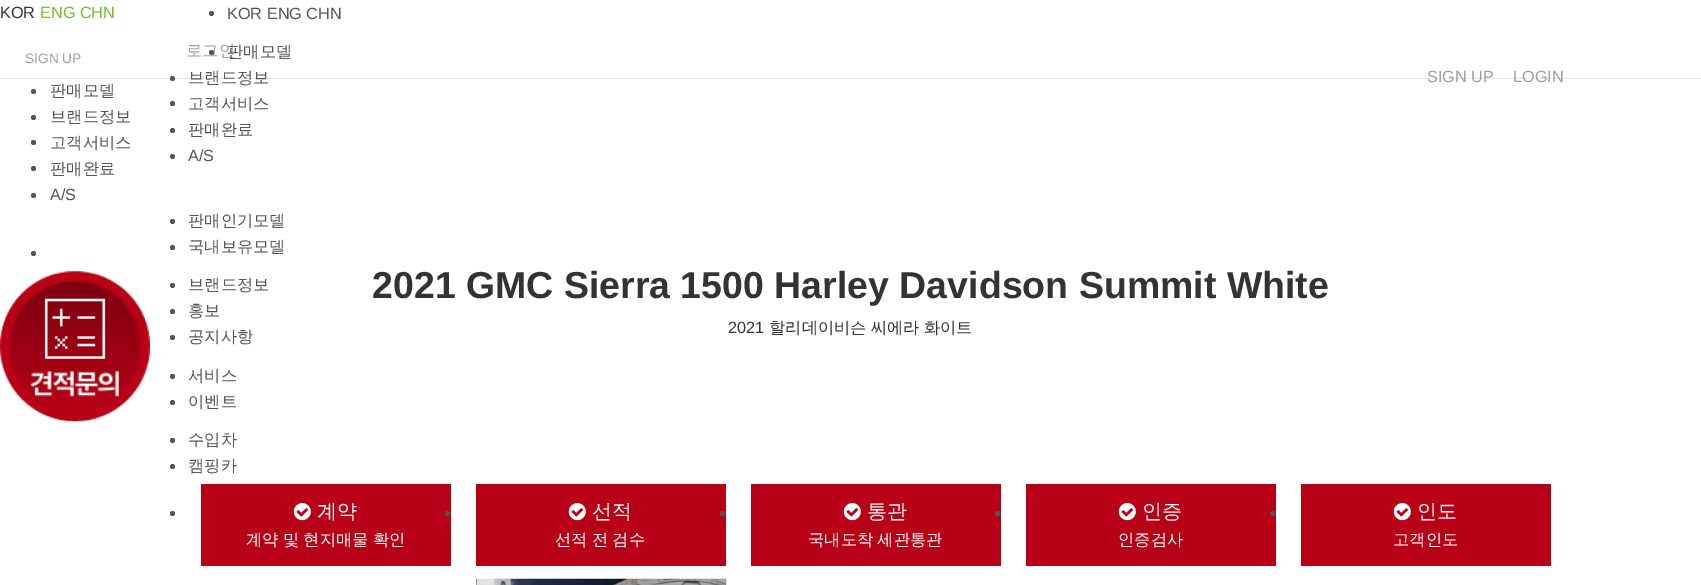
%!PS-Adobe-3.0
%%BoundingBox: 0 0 1701 585
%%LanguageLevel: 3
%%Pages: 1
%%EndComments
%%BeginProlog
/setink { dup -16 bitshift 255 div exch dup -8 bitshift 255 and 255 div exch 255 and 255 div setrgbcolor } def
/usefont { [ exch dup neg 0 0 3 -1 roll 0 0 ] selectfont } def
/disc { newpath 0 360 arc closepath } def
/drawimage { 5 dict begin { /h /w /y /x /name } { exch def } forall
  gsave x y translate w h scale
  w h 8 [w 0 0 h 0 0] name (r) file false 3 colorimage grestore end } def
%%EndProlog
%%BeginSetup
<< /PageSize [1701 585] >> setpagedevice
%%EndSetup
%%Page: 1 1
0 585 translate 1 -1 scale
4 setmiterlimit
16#FFFFFF setink
0 0 1701 585 rectfill
/LiberationSans-Regular 16.25 usefont
16#333333 setink
0 18 moveto (KOR) show
16#72C02C setink
40 18 moveto (ENG CHN) show
16#E7E7E7 setink
0 78 1701 1 rectfill
/LiberationSans-Regular 13.75 usefont
16#9F9F9F setink
25 63 moveto (SIGN UP) show
/WenQuanYiZenHei-Medium 16.25 usefont
186 56 moveto (로그인) show
16#555555 setink
33.5 91.5 2.5 disc fill
50 96 moveto (판매모델) show
33.5 117.5 2.5 disc fill
50 122 moveto (브랜드정보) show
33.5 142.5 2.5 disc fill
50 148 moveto (고객서비스) show
33.5 168.5 2.5 disc fill
50 174 moveto (판매완료) show
33.5 195.5 2.5 disc fill
/LiberationSans-Regular 16.25 usefont
50 200 moveto (A/S) show
33.5 253.5 2.5 disc fill
211.5 13.5 2.5 disc fill
227 19 moveto (KOR ENG CHN) show
16#9F9F9F setink
1427 82 moveto (SIGN UP) show
1513 82 moveto (LOGIN) show
16#555555 setink
211.5 52.5 2.5 disc fill
/WenQuanYiZenHei-Medium 16.25 usefont
227 57 moveto (판매모델) show
172.5 78.5 2.5 disc fill
188 83 moveto (브랜드정보) show
172.5 103.5 2.5 disc fill
188 109 moveto (고객서비스) show
172.5 130.5 2.5 disc fill
188 135 moveto (판매완료) show
172.5 156.5 2.5 disc fill
/LiberationSans-Regular 16.25 usefont
188 161 moveto (A/S) show
172.5 221.5 2.5 disc fill
/WenQuanYiZenHei-Medium 16.25 usefont
188 226 moveto (판매인기모델) show
172.5 247.5 2.5 disc fill
188 252 moveto (국내보유모델) show
172.5 285.5 2.5 disc fill
188 290 moveto (브랜드정보) show
172.5 311.5 2.5 disc fill
188 316 moveto (홍보) show
172.5 337.5 2.5 disc fill
188 342 moveto (공지사항) show
172.5 376.5 2.5 disc fill
188 381 moveto (서비스) show
172.5 402.5 2.5 disc fill
188 407 moveto (이벤트) show
172.5 440.5 2.5 disc fill
188 445 moveto (수입차) show
172.5 466.5 2.5 disc fill
188 471 moveto (캠핑카) show
(img1.raw) 0 271 150 151 drawimage
/LiberationSans-Bold 37.5 usefont
16#333333 setink
372 298 moveto (2021 GMC Sierra 1500 Harley Davidson Summit White) show
/LiberationSans-Regular 16.25 usefont
728 333 moveto (2021) show
/WenQuanYiZenHei-Medium 16.25 usefont
769 333 moveto -0.5 0 32 (할리데이비슨 씨에라 화이트) widthshow
16#555555 setink
172.5 513.5 2.5 disc fill
16#B80016 setink
201 484 250 82 rectfill
(img2.raw) 293 503 18 18 drawimage
/WenQuanYiZenHei-Medium 20 usefont
16#FFFFFF setink
317 518 moveto (계약) show
/WenQuanYiZenHei-Medium 16.25 usefont
246 545 moveto -0.5 0 32 (계약 및 현지매물 확인) widthshow
16#555555 setink
447.5 513.5 2.5 disc fill
16#B80016 setink
476 484 250 82 rectfill
(img2.raw) 568 503 18 18 drawimage
/WenQuanYiZenHei-Medium 20 usefont
16#FFFFFF setink
592 518 moveto (선적) show
/WenQuanYiZenHei-Medium 16.25 usefont
555 545 moveto -0.5 0 32 (선적 전 검수) widthshow
(img3.raw) 476 578 251 7 drawimage
16#555555 setink
722.5 513.5 2.5 disc fill
16#B80016 setink
751 484 250 82 rectfill
(img2.raw) 843 503 18 18 drawimage
/WenQuanYiZenHei-Medium 20 usefont
16#FFFFFF setink
867 518 moveto (통관) show
/WenQuanYiZenHei-Medium 16.25 usefont
808 545 moveto -0.5 0 32 (국내도착 세관통관) widthshow
16#555555 setink
997.5 513.5 2.5 disc fill
16#B80016 setink
1026 484 250 82 rectfill
(img2.raw) 1118 503 18 18 drawimage
/WenQuanYiZenHei-Medium 20 usefont
16#FFFFFF setink
1142 518 moveto (인증) show
/WenQuanYiZenHei-Medium 16.25 usefont
1118 545 moveto (인증검사) show
16#555555 setink
1272.5 513.5 2.5 disc fill
16#B80016 setink
1301 484 250 82 rectfill
(img2.raw) 1393 503 18 18 drawimage
/WenQuanYiZenHei-Medium 20 usefont
16#FFFFFF setink
1417 518 moveto (인도) show
/WenQuanYiZenHei-Medium 16.25 usefont
1393 545 moveto (고객인도) show
showpage
%%EOF
